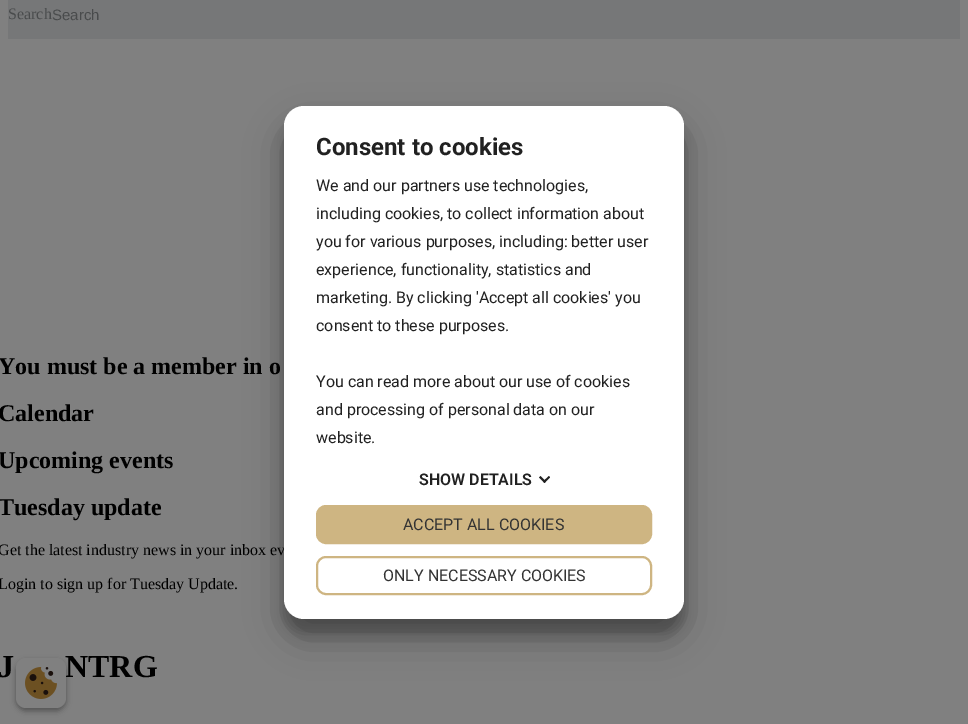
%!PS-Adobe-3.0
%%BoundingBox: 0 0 968 724
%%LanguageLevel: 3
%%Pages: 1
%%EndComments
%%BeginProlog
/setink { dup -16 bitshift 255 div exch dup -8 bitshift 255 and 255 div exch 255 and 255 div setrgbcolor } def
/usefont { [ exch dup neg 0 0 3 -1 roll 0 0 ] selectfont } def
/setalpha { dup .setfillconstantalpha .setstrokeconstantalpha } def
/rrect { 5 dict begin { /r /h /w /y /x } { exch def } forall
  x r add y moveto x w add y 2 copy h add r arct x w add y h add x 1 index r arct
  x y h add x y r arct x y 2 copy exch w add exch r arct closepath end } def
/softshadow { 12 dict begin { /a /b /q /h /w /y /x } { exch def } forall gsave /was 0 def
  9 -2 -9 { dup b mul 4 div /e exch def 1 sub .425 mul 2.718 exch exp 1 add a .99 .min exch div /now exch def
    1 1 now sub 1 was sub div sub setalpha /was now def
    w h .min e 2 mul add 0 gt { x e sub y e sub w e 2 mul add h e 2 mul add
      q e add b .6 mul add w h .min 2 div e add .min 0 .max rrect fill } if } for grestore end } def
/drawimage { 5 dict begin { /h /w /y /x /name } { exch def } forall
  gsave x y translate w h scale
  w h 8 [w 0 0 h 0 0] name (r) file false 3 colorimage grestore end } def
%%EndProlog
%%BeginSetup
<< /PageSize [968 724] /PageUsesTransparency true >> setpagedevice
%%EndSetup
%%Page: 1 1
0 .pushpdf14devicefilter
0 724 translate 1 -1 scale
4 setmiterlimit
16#808080 setink
0 0 968 724 rectfill
16#767778 setink
8 0 952 39 rectfill
/LiberationSerif-Regular 16 usefont
16#494B4C setink
8 19 moveto (Search) show
/LiberationSans-Regular 15 usefont
52 20 moveto (Search) show
/LiberationSerif-Bold 24 usefont
16#000000 setink
[
    [(You must be a member in o) -2 374]
    [(Calendar) -2 421]
    [(Upcoming events) -2 468]
    [(Tuesday update) -2 515]
] { aload pop moveto show } forall
/LiberationSerif-Regular 16 usefont
-2 555 moveto (Get the latest industry news in your inbox ev) show
-2 589 moveto (Login to sign up for Tuesday Update.) show
/LiberationSerif-Bold 32 usefont
-2 677 moveto (J) show
65 677 moveto (NTRG) show
284 121 400 513 20 6 0.22 softshadow
284 125 400 513 20 19 0.3 softshadow
16#FFFFFF setink
284 106 400 513 20 rrect fill
/Roboto-Bold 24 usefont
16#212121 setink
316 155 moveto (Consent to cookies) show
/Roboto-Regular 16 usefont
[
    [(We and our partners use technologies,) 316 191]
    [(including cookies, to collect information about) 316 219]
    [(you for various purposes, including: better user) 316 247]
    [(experience, functionality, statistics and) 316 275]
    [(marketing. By clicking 'Accept all cookies' you) 316 303]
    [(consent to these purposes.) 316 331]
    [(You can read more about our use of cookies) 316 387]
    [(and processing of personal data on our) 316 415]
    [(website.) 316 443]
] { aload pop moveto show } forall
/Roboto-SemiBold 16 usefont
419 485 moveto (SHOW DETAILS) show
549 476 moveto 550 477.5 lineto 544.5 483 lineto 543 481.5 lineto closepath fill
540.5 476 moveto 546 481.5 lineto 544.5 483 lineto 539 477.5 lineto closepath fill
16#CEB582 setink
317 506 334 37 9 rrect gsave fill grestore
2 setlinewidth
stroke
/Roboto-Regular 16 usefont
16#333333 setink
403 530 moveto (ACCEPT ALL COOKIES) show
16#CEB582 setink
317 557 334 37 9 rrect stroke
16#333333 setink
383 581 moveto (ONLY NECESSARY COOKIES) show
16#000000 setink
16 661 50 50 10 3 0.23 softshadow
16 661 50 50 10 3 0.16 softshadow
16#808080 setink
16 658 50 50 10 rrect fill
(img1.raw) 25 667 32 32 drawimage
.poppdf14devicefilter showpage
%%EOF
